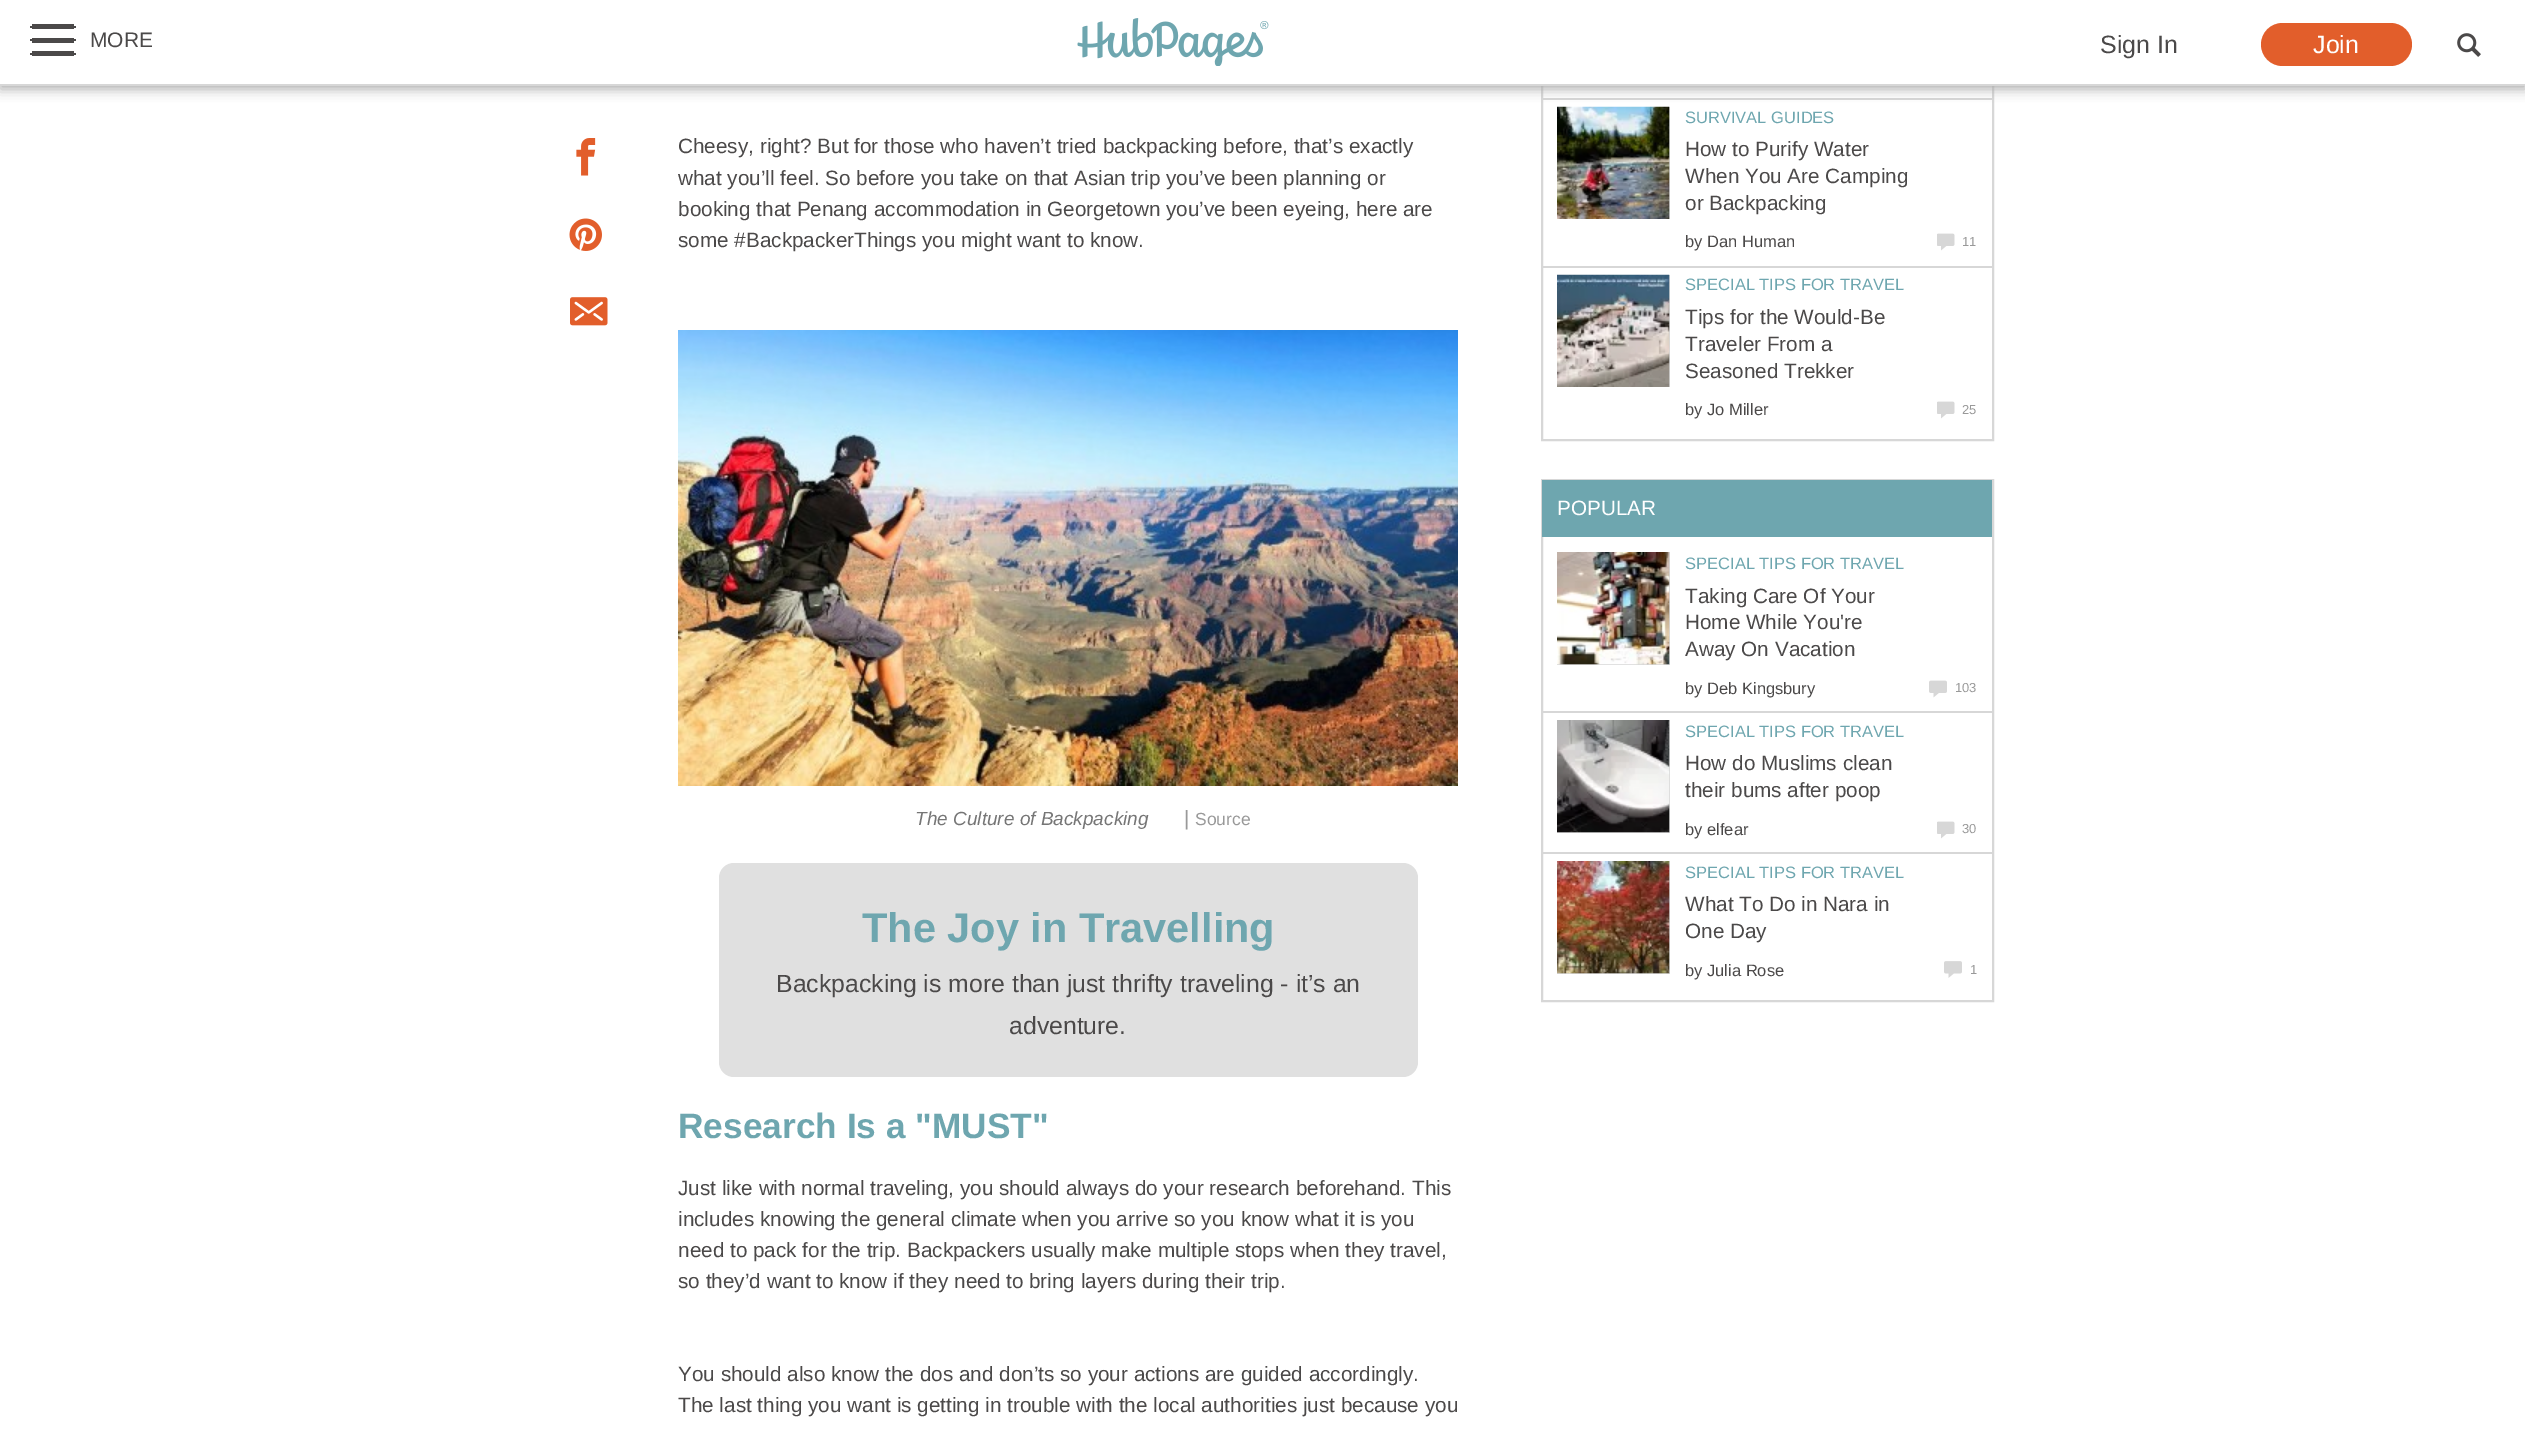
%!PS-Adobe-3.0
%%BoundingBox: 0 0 2525 1434
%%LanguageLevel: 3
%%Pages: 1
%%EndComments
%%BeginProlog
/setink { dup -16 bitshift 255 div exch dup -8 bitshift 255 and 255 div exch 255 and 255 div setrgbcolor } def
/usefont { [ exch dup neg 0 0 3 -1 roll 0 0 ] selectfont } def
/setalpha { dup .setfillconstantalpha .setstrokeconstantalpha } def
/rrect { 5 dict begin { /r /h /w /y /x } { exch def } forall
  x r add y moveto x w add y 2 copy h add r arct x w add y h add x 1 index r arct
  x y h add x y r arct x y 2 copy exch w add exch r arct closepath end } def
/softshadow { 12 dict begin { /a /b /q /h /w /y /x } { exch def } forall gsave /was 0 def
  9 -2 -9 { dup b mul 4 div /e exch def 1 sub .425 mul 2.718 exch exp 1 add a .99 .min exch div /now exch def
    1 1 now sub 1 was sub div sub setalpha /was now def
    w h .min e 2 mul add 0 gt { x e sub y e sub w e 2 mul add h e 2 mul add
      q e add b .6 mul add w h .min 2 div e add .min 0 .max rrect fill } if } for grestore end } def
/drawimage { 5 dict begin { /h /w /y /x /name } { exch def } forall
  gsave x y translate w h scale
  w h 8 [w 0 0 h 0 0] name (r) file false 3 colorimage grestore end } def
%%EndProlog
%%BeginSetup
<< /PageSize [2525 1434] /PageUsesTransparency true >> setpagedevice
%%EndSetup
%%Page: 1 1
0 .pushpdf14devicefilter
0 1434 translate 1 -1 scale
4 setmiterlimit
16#FFFFFF setink
0 0 2525 1434 rectfill
16#D7D7D7 setink
2 setlinewidth
1542 -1 451 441 rectstroke
1542 98 450 2 rectfill
1669 107 1 112 rectfill
(img7.raw) 1557 106 113 113 drawimage
16#AAAAAA setink
0 3 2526 86 0 6 1 softshadow
[
    [0 0 2525 84 16#FFFFFF]
    [0 84 2525 2 16#D7D7D7]
    [71 26 5 2 16#4B4949]
    [32 24 42 5 16#4B4949]
    [30 26 5 2 16#4B4949]
    [71 39 5 2 16#4B4949]
    [32 38 42 5 16#4B4949]
    [30 39 5 2 16#4B4949]
    [71 53 5 2 16#4B4949]
    [32 51 42 5 16#4B4949]
    [30 53 5 2 16#4B4949]
] { aload pop setink rectfill } forall
/LiberationSans-Regular 21 usefont
90 47 moveto (MORE) show
(img1.raw) 1077 18 192 48 drawimage
/LiberationSans-Regular 25 usefont
2100 53 moveto (Sign In) show
16#E25E2B setink
2261 23 151 43 21.5 rrect fill
16#FFFFFF setink
2313 53 moveto (Join) show
(img2.raw) 2457 33 24 24 drawimage
(img3.raw) 576 138 20 38 drawimage
(img4.raw) 569 218 33 33 drawimage
(img5.raw) 570 297 38 29 drawimage
/LiberationSans-Regular 20.7 usefont
16#4B4949 setink
[
    [(Cheesy, right? But for those who haven’t tried backpacking before, that’s exactly) 678 153]
    [(what you’ll feel. So before you take on that Asian trip you’ve been planning or) 678 185]
    [(booking that Penang accommodation in Georgetown you’ve been eyeing, here are) 678 216]
    [(some #BackpackerThings you might want to know.) 678 247]
] { aload pop moveto show } forall
(img6.raw) 678 330 780 456 drawimage
/LiberationSans-Italic 19 usefont
16#767676 setink
915 825 moveto (The Culture of Backpacking) show
/LiberationSans-Regular 20.7 usefont
16#999999 setink
1184 825 moveto (|) show
/LiberationSans-Regular 17.5 usefont
1195 825 moveto (Source) show
16#E0E0E0 setink
719 863 699 214 15 rrect fill
/LiberationSans-Bold 41.5 usefont
16#6EA6AF setink
862 942 moveto (The Joy in Travelling) show
/LiberationSans-Regular 24.8 usefont
16#4B4949 setink
776 992 moveto (Backpacking is more than just thrifty traveling - it’s an) show
1009 1034 moveto (adventure.) show
/LiberationSans-Bold 35.25 usefont
16#6EA6AF setink
678 1138 moveto (Research Is a "MUST") show
/LiberationSans-Regular 20.7 usefont
16#4B4949 setink
[
    [(Just like with normal traveling, you should always do your research beforehand. This) 678 1195]
    [(includes knowing the general climate when you arrive so you know what it is you) 678 1226]
    [(need to pack for the trip. Backpackers usually make multiple stops when they travel,) 678 1257]
    [(so they’d want to know if they need to bring layers during their trip.) 678 1288]
    [(You should also know the dos and don’ts so your actions are guided accordingly.) 678 1381]
    [(The last thing you want is getting in trouble with the local authorities just because you) 678 1412]
] { aload pop moveto show } forall
16#D7D7D7 setink
1542 266 450 2 rectfill
/LiberationSans-Regular 16.5 usefont
16#6EA6AF setink
1685 123 moveto (SURVIVAL GUIDES) show
/LiberationSans-Regular 20.7 usefont
16#4B4949 setink
[
    [(How to Purify Water) 1685 156]
    [(When You Are Camping) 1685 183]
    [(or Backpacking) 1685 210]
] { aload pop moveto show } forall
/LiberationSans-Regular 16.5 usefont
1685 247 moveto (by Dan Human) show
(img8.raw) 1937 233 18 18 drawimage
/LiberationSans-Regular 13 usefont
16#999999 setink
1962 246 moveto (11) show
16#D7D7D7 setink
1669 275 1 112 rectfill
(img9.raw) 1557 274 113 113 drawimage
/LiberationSans-Regular 16.5 usefont
16#6EA6AF setink
1685 290 moveto (SPECIAL TIPS FOR TRAVEL) show
/LiberationSans-Regular 20.7 usefont
16#4B4949 setink
[
    [(Tips for the Would-Be) 1685 324]
    [(Traveler From a) 1685 351]
    [(Seasoned Trekker) 1685 378]
] { aload pop moveto show } forall
/LiberationSans-Regular 16.5 usefont
1685 415 moveto (by Jo Miller) show
(img8.raw) 1937 401 18 18 drawimage
/LiberationSans-Regular 13 usefont
16#999999 setink
1962 414 moveto (25) show
16#D7D7D7 setink
1542 480 451 521 rectstroke
16#6EA6AF setink
1542 480 450 57 rectfill
/LiberationSans-Regular 20.7 usefont
16#FFFFFF setink
1557 515 moveto (POPULAR) show
16#D7D7D7 setink
1542 711 450 2 rectfill
1557 552 113 113 rectfill
(img10.raw) 1557 552 113 113 drawimage
/LiberationSans-Regular 16.5 usefont
16#6EA6AF setink
1685 569 moveto (SPECIAL TIPS FOR TRAVEL) show
/LiberationSans-Regular 20.7 usefont
16#4B4949 setink
[
    [(Taking Care Of Your) 1685 603]
    [(Home While You're) 1685 629]
    [(Away On Vacation) 1685 656]
] { aload pop moveto show } forall
/LiberationSans-Regular 16.5 usefont
1685 694 moveto (by Deb Kingsbury) show
(img11.raw) 1929 680 18 18 drawimage
/LiberationSans-Regular 13 usefont
16#999999 setink
1955 692 moveto (103) show
16#D7D7D7 setink
1542 852 450 2 rectfill
1557 720 113 113 rectfill
(img12.raw) 1557 720 113 113 drawimage
/LiberationSans-Regular 16.5 usefont
16#6EA6AF setink
1685 737 moveto (SPECIAL TIPS FOR TRAVEL) show
/LiberationSans-Regular 20.7 usefont
16#4B4949 setink
1685 770 moveto (How do Muslims clean) show
1685 797 moveto (their bums after poop) show
/LiberationSans-Regular 16.5 usefont
1685 835 moveto (by elfear) show
(img8.raw) 1937 821 18 18 drawimage
/LiberationSans-Regular 13 usefont
16#999999 setink
1962 833 moveto (30) show
16#D7D7D7 setink
1557 861 113 113 rectfill
(img13.raw) 1557 861 113 113 drawimage
/LiberationSans-Regular 16.5 usefont
16#6EA6AF setink
1685 878 moveto (SPECIAL TIPS FOR TRAVEL) show
/LiberationSans-Regular 20.7 usefont
16#4B4949 setink
1685 911 moveto (What To Do in Nara in) show
1685 938 moveto (One Day) show
/LiberationSans-Regular 16.5 usefont
1685 976 moveto (by Julia Rose) show
(img14.raw) 1944 961 18 17 drawimage
/LiberationSans-Regular 13 usefont
16#999999 setink
1970 974 moveto (1) show
.poppdf14devicefilter showpage
%%EOF
